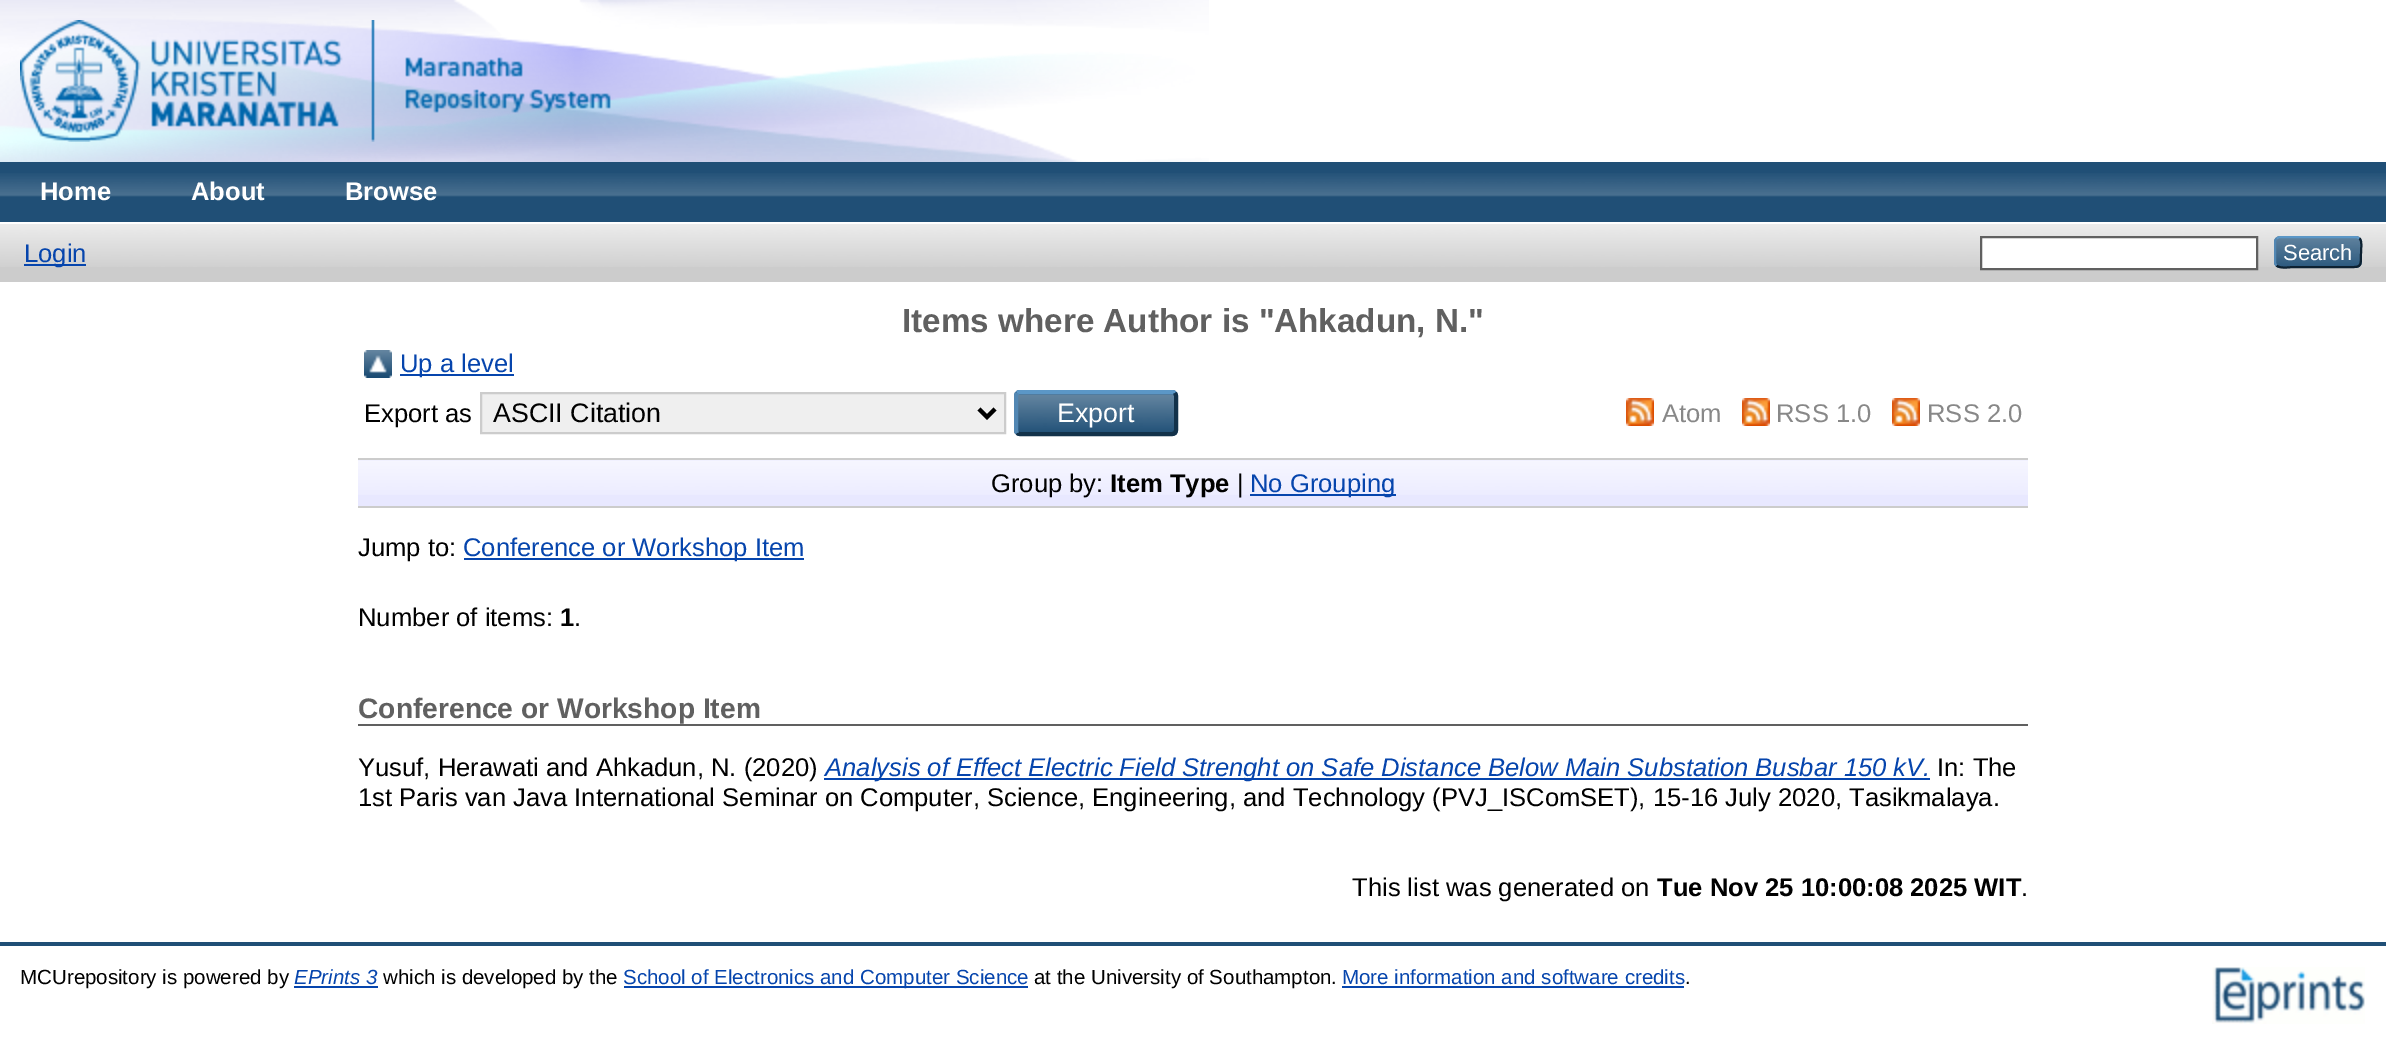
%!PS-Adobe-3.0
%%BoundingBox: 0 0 2386 1040
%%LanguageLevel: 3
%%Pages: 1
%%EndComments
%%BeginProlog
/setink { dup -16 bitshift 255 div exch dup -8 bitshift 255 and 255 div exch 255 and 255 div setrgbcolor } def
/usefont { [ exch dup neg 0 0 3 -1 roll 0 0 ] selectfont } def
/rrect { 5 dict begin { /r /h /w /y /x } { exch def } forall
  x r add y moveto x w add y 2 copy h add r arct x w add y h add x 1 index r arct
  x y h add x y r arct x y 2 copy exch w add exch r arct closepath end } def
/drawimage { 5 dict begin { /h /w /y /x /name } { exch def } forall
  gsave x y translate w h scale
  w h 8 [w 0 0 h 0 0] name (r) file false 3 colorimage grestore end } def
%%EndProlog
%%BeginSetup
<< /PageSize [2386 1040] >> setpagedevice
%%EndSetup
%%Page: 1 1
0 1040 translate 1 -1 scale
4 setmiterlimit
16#FFFFFF setink
0 0 2386 1040 rectfill
(img1.raw) 0 0 1209 162 drawimage
(img2.raw) 20 20 591 122 drawimage
16#204F76 setink
0 162 2386 60 rectfill
(img3.raw) 0 173 2386 24 drawimage
/LiberationSans-Bold 25.6 usefont
16#FFFFFF setink
[
    [(Home) 40 200]
    [(About) 191 200]
    [(Browse) 345 200]
] { aload pop moveto show } forall
16#CCCCCC setink
0 224 2386 58 rectfill
(img4.raw) 0 224 2386 43 drawimage
16#0645AD setink
24 264 62 2 rectfill
/LiberationSans-Regular 25.6 usefont
24 262 moveto (Login) show
16#FFFFFF setink
1981 237 moveto 2257 237 lineto 2257 269 lineto 1981 269 lineto closepath gsave fill grestore
16#606060 setink
2 setlinewidth
stroke
16#1F4F76 setink
2274 236 88 32 6 rrect fill
(img5.raw) 2274 236 88 32 drawimage
16#5B97C7 setink
2276.5 238.5 moveto 2279.5 237 lineto 2356.5 237 lineto 2359.5 238.5 lineto stroke
16#0D2131 setink
2359.5 238.5 moveto 2362.5 241 2361 248.5 2361 252 curveto 2361 269 2361.5 267 2343.5 267 curveto 2292.5 267 lineto 2291.5 267 2280 269 2276.5 265.5 curveto stroke
16#5287B3 setink
2276.5 265.5 moveto 2275.5 264.5 2275 263.5 2275 262 curveto 2275 242 lineto 2275 240.5 2275.5 239.5 2276.5 238.5 curveto stroke
/LiberationSans-Regular 22 usefont
16#FFFFFF setink
2283 260 moveto (Search) show
/LiberationSans-Bold 33.25 usefont
16#606060 setink
902 332 moveto (Items where Author is ") show
1274 332 moveto (Ahkadun, N.") show
(img6.raw) 364 350 28 28 drawimage
16#0645AD setink
400 374 114 2 rectfill
/LiberationSans-Regular 25.6 usefont
400 372 moveto (Up a level) show
16#000000 setink
364 422 moveto (Export as) show
16#EFEFEF setink
481 393 moveto 1005 393 lineto 1005 433 lineto 481 433 lineto closepath gsave fill grestore
16#CCCCCC setink
stroke
16#000000 setink
4 setlinewidth
979 409 moveto 987 417 lineto 995 409 lineto stroke
/LiberationSans-Regular 26.75 usefont
493 422 moveto (ASCII Citation) show
16#1F4F76 setink
1014 390 164 46 6 rrect fill
(img7.raw) 1014 393 164 39 drawimage
16#5B97C7 setink
1017 393 moveto 1018 392.5 1019 392 1020 392 curveto 1172 392 lineto 1173 392 1174 392.5 1175 393 curveto stroke
16#13324A setink
1175 393 moveto 1175.5 394 1176 395 1176 396 curveto 1176 430 lineto 1176 431 1175.5 432 1175 433 curveto 1174 433.5 1173 434 1172 434 curveto 1020 434 lineto 1019 434 1018 433.5 1017 433 curveto stroke
16#5287B3 setink
1017 433 moveto 1016.5 432 1016 431 1016 430 curveto 1016 396 lineto 1016 395 1016.5 394 1017 393 curveto stroke
16#FFFFFF setink
1057 422 moveto (Export) show
(img8.raw) 1626 398 28 28 drawimage
/LiberationSans-Regular 25.6 usefont
16#888888 setink
1662 422 moveto (Atom) show
(img8.raw) 1742 398 28 28 drawimage
1776 422 moveto (RSS 1.0) show
(img8.raw) 1892 398 28 28 drawimage
1927 422 moveto (RSS 2.0) show
16#E8E8FF setink
358 460 1670 46 rectfill
(img9.raw) 358 460 1670 35 drawimage
16#CCCCCC setink
358 458 1670 2 rectfill
358 506 1670 2 rectfill
16#000000 setink
991 492 moveto (Group by:) show
/LiberationSans-Bold 25.6 usefont
1110 492 moveto (Item Type) show
/LiberationSans-Regular 25.6 usefont
1237 492 moveto (|) show
16#0645AD setink
1250 494 146 2 rectfill
1250 492 moveto (No Grouping) show
16#000000 setink
358 556 moveto (Jump to:) show
16#0645AD setink
464 558 340 2 rectfill
463 556 moveto (Conference or Workshop Item) show
16#000000 setink
358 626 moveto (Number of items:) show
/LiberationSans-Bold 25.6 usefont
560 626 moveto (1) show
/LiberationSans-Regular 25.6 usefont
574 626 moveto (.) show
16#606060 setink
358 724 1670 2 rectfill
/LiberationSans-Bold 28.2 usefont
358 718 moveto (Conference or Workshop Item) show
/LiberationSans-Regular 25.6 usefont
16#000000 setink
358 776 moveto (Yusuf, Herawati and Ahkadun, N. \(2020\)) show
16#0645AD setink
824 778 1106 2 rectfill
/LiberationSans-Italic 25.6 usefont
825 776 moveto (Analysis of Effect Electric Field Strenght on Safe Distance Below Main Substation Busbar 150 kV.) show
/LiberationSans-Regular 25.6 usefont
16#000000 setink
[
    [(In: The) 1937 776]
    [(1st Paris van Java International Seminar on Computer, Science, Engineering, and Technology \(PVJ_ISComSET\), 15-16 July 2020, Tasikmalaya.) 358 806]
    [(This list was generated on) 1352 896]
] { aload pop moveto show } forall
/LiberationSans-Bold 25.6 usefont
1657 896 moveto (Tue Nov 25 10:00:08 2025 WIT) show
/LiberationSans-Regular 25.6 usefont
2021 896 moveto (.) show
16#204F76 setink
0 942 2386 4 rectfill
/LiberationSans-Regular 20.5 usefont
16#000000 setink
20 984 moveto (MCUrepository is powered by) show
/LiberationSans-Italic 20.5 usefont
16#0645AD setink
294 984 moveto (EPrints 3) show
294 986 84 2 rectfill
/LiberationSans-Regular 20.5 usefont
16#000000 setink
383 984 moveto (which is developed by the) show
16#0645AD setink
624 986 404 2 rectfill
623 984 moveto (School of Electronics and Computer Science) show
16#000000 setink
1034 984 moveto (at the University of Southampton.) show
16#0645AD setink
1342 984 moveto (More information and software credits) show
1342 986 342 2 rectfill
16#000000 setink
1685 984 moveto (.) show
(img10.raw) 2212 967 153 57 drawimage
showpage
%%EOF
